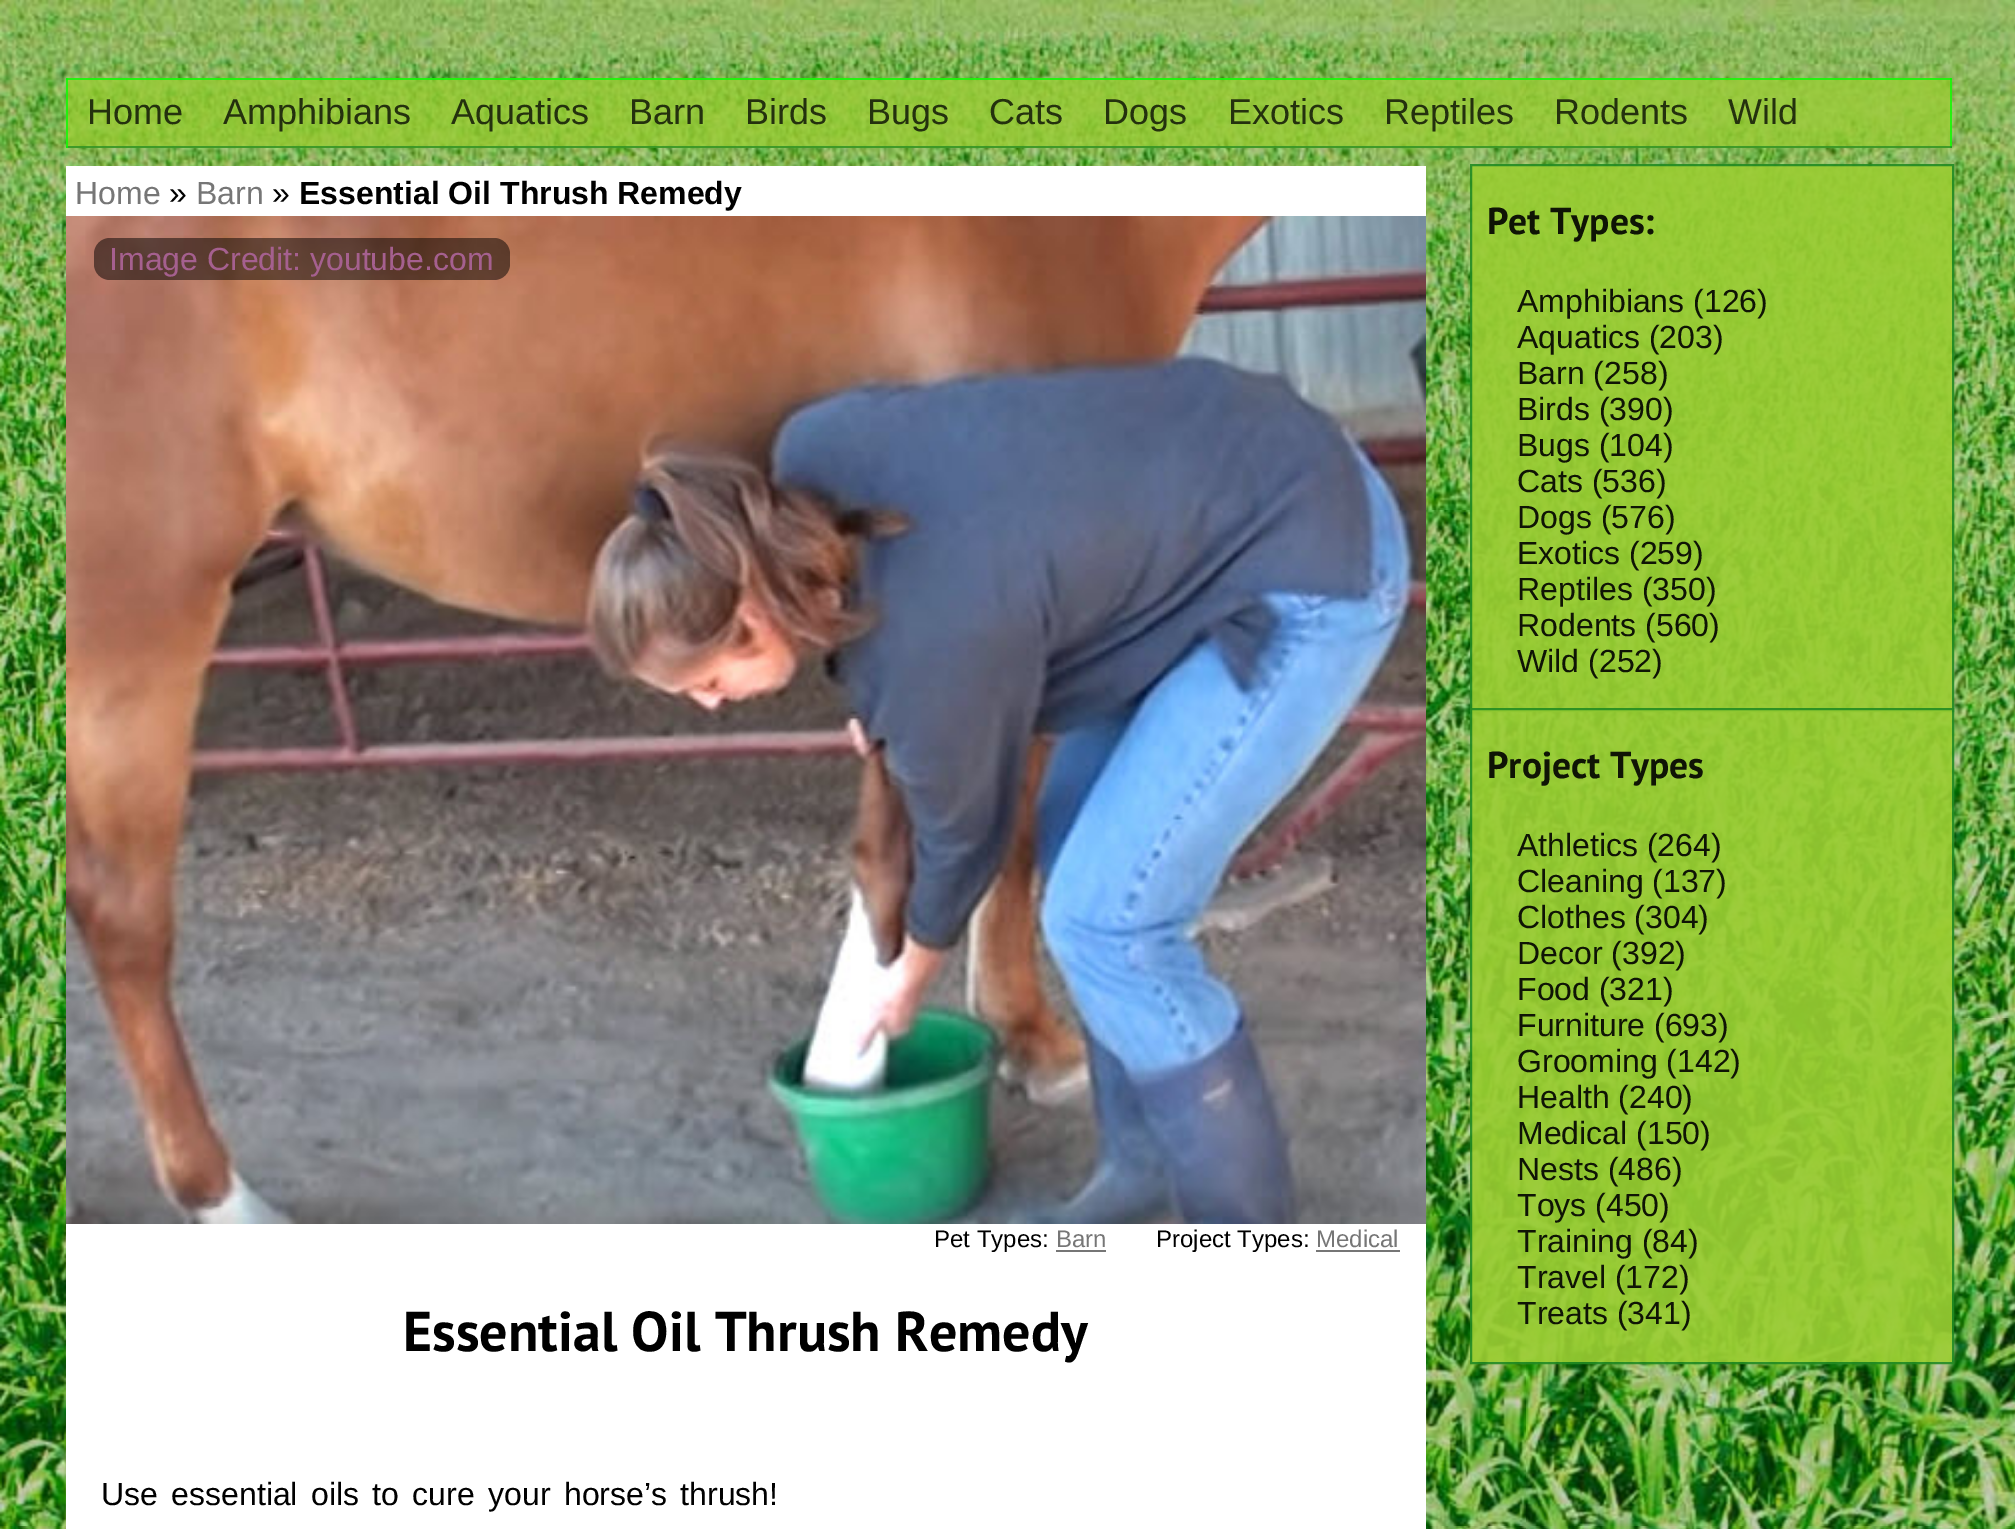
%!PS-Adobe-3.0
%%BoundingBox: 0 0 2015 1529
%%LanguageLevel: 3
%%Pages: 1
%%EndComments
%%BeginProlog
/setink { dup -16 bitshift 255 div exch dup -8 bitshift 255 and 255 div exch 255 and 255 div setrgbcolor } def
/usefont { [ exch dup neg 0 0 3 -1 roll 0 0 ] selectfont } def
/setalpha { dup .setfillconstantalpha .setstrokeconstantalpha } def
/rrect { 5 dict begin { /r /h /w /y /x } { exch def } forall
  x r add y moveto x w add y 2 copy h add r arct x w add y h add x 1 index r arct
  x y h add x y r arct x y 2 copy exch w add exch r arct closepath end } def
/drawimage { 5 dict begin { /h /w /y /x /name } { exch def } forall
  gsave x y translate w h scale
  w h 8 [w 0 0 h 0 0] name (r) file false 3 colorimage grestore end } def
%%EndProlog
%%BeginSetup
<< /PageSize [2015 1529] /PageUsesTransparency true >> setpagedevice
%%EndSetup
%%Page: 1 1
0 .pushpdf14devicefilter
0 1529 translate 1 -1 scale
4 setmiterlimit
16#FFFFFF setink
0 0 2015 1529 rectfill
(img1.raw) 0 0 2015 1529 drawimage
0.75 setalpha
[
    [66 78 1886 70 16#9ACD32]
    [66 78 1886 2 16#00FF00]
    [1950 78 2 70 16#00FF00]
    [66 146 1886 2 16#228B22]
    [66 78 2 70 16#00FF00]
] { aload pop setink rectfill } forall
/LiberationSans-Regular 36 usefont
1 setalpha
16#24310E setink
[
    [(Home) 87 124]
    [(Amphibians) 223 124]
    [(Aquatics) 451 124]
    [(Barn) 629 124]
    [(Birds) 745 124]
    [(Bugs) 867 124]
    [(Cats) 989 124]
    [(Dogs) 1103 124]
    [(Exotics) 1228 124]
    [(Reptiles) 1384 124]
    [(Rodents) 1554 124]
    [(Wild) 1728 124]
] { aload pop moveto show } forall
16#FFFFFF setink
66 166 1360 50 rectfill
/LiberationSans-Regular 32 usefont
16#767676 setink
75 204 moveto (Home) show
16#000000 setink
169 204 moveto (») show
16#767676 setink
196 204 moveto (Barn) show
16#000000 setink
272 204 moveto (») show
/LiberationSans-Bold 32 usefont
299 204 moveto (Essential Oil Thrush Remedy) show
(img2.raw) 66 216 1360 1008 drawimage
0.5 setalpha
94 238 416 42 16 rrect fill
/LiberationSans-Regular 32 usefont
1 setalpha
16#A5608F setink
109 270 moveto (Image Credit: youtube.com) show
16#FFFFFF setink
66 1224 1360 305 rectfill
/LiberationSans-Regular 24 usefont
16#000000 setink
934 1247 moveto (Pet Types:) show
16#767676 setink
1056 1247 moveto (Barn) show
1056 1250 50 2 rectfill
16#000000 setink
1156 1247 moveto (Project Types:) show
16#767676 setink
1316 1247 moveto (Medical) show
1316 1250 84 2 rectfill
/PTSans-Bold 56 usefont
16#000000 setink
403 1351 moveto (Essential Oil Thrush Remedy) show
/LiberationSans-Regular 32 usefont
101 1505 moveto 4.5 0 32 (Use essential oils to cure your horse’s thrush!) widthshow
0.9 setalpha
16#9ACD32 setink
1472 166 480 544 rectfill
16#228B22 setink
2 setlinewidth
1471 165 482 546 rectstroke
/PTSans-Bold 37.5 usefont
1 setalpha
16#0F1405 setink
1487 234 moveto (Pet Types:) show
/LiberationSans-Regular 32 usefont
[
    [(Amphibians \(126\)) 1517 312]
    [(Aquatics \(203\)) 1517 348]
    [(Barn \(258\)) 1517 384]
    [(Birds \(390\)) 1517 420]
    [(Bugs \(104\)) 1517 456]
    [(Cats \(536\)) 1517 492]
    [(Dogs \(576\)) 1517 528]
    [(Exotics \(259\)) 1517 564]
    [(Reptiles \(350\)) 1517 600]
    [(Rodents \(560\)) 1517 636]
    [(Wild \(252\)) 1517 672]
] { aload pop moveto show } forall
0.9 setalpha
16#9ACD32 setink
1472 710 480 652 rectfill
16#228B22 setink
1471 709 482 654 rectstroke
/PTSans-Bold 37.5 usefont
1 setalpha
16#0F1405 setink
1487 778 moveto (Project Types) show
/LiberationSans-Regular 32 usefont
[
    [(Athletics \(264\)) 1517 856]
    [(Cleaning \(137\)) 1517 892]
    [(Clothes \(304\)) 1517 928]
    [(Decor \(392\)) 1517 964]
    [(Food \(321\)) 1517 1000]
    [(Furniture \(693\)) 1517 1036]
    [(Grooming \(142\)) 1517 1072]
    [(Health \(240\)) 1517 1108]
    [(Medical \(150\)) 1517 1144]
    [(Nests \(486\)) 1517 1180]
    [(Toys \(450\)) 1517 1216]
    [(Training \(84\)) 1517 1252]
    [(Travel \(172\)) 1517 1288]
    [(Treats \(341\)) 1517 1324]
] { aload pop moveto show } forall
.poppdf14devicefilter showpage
%%EOF
